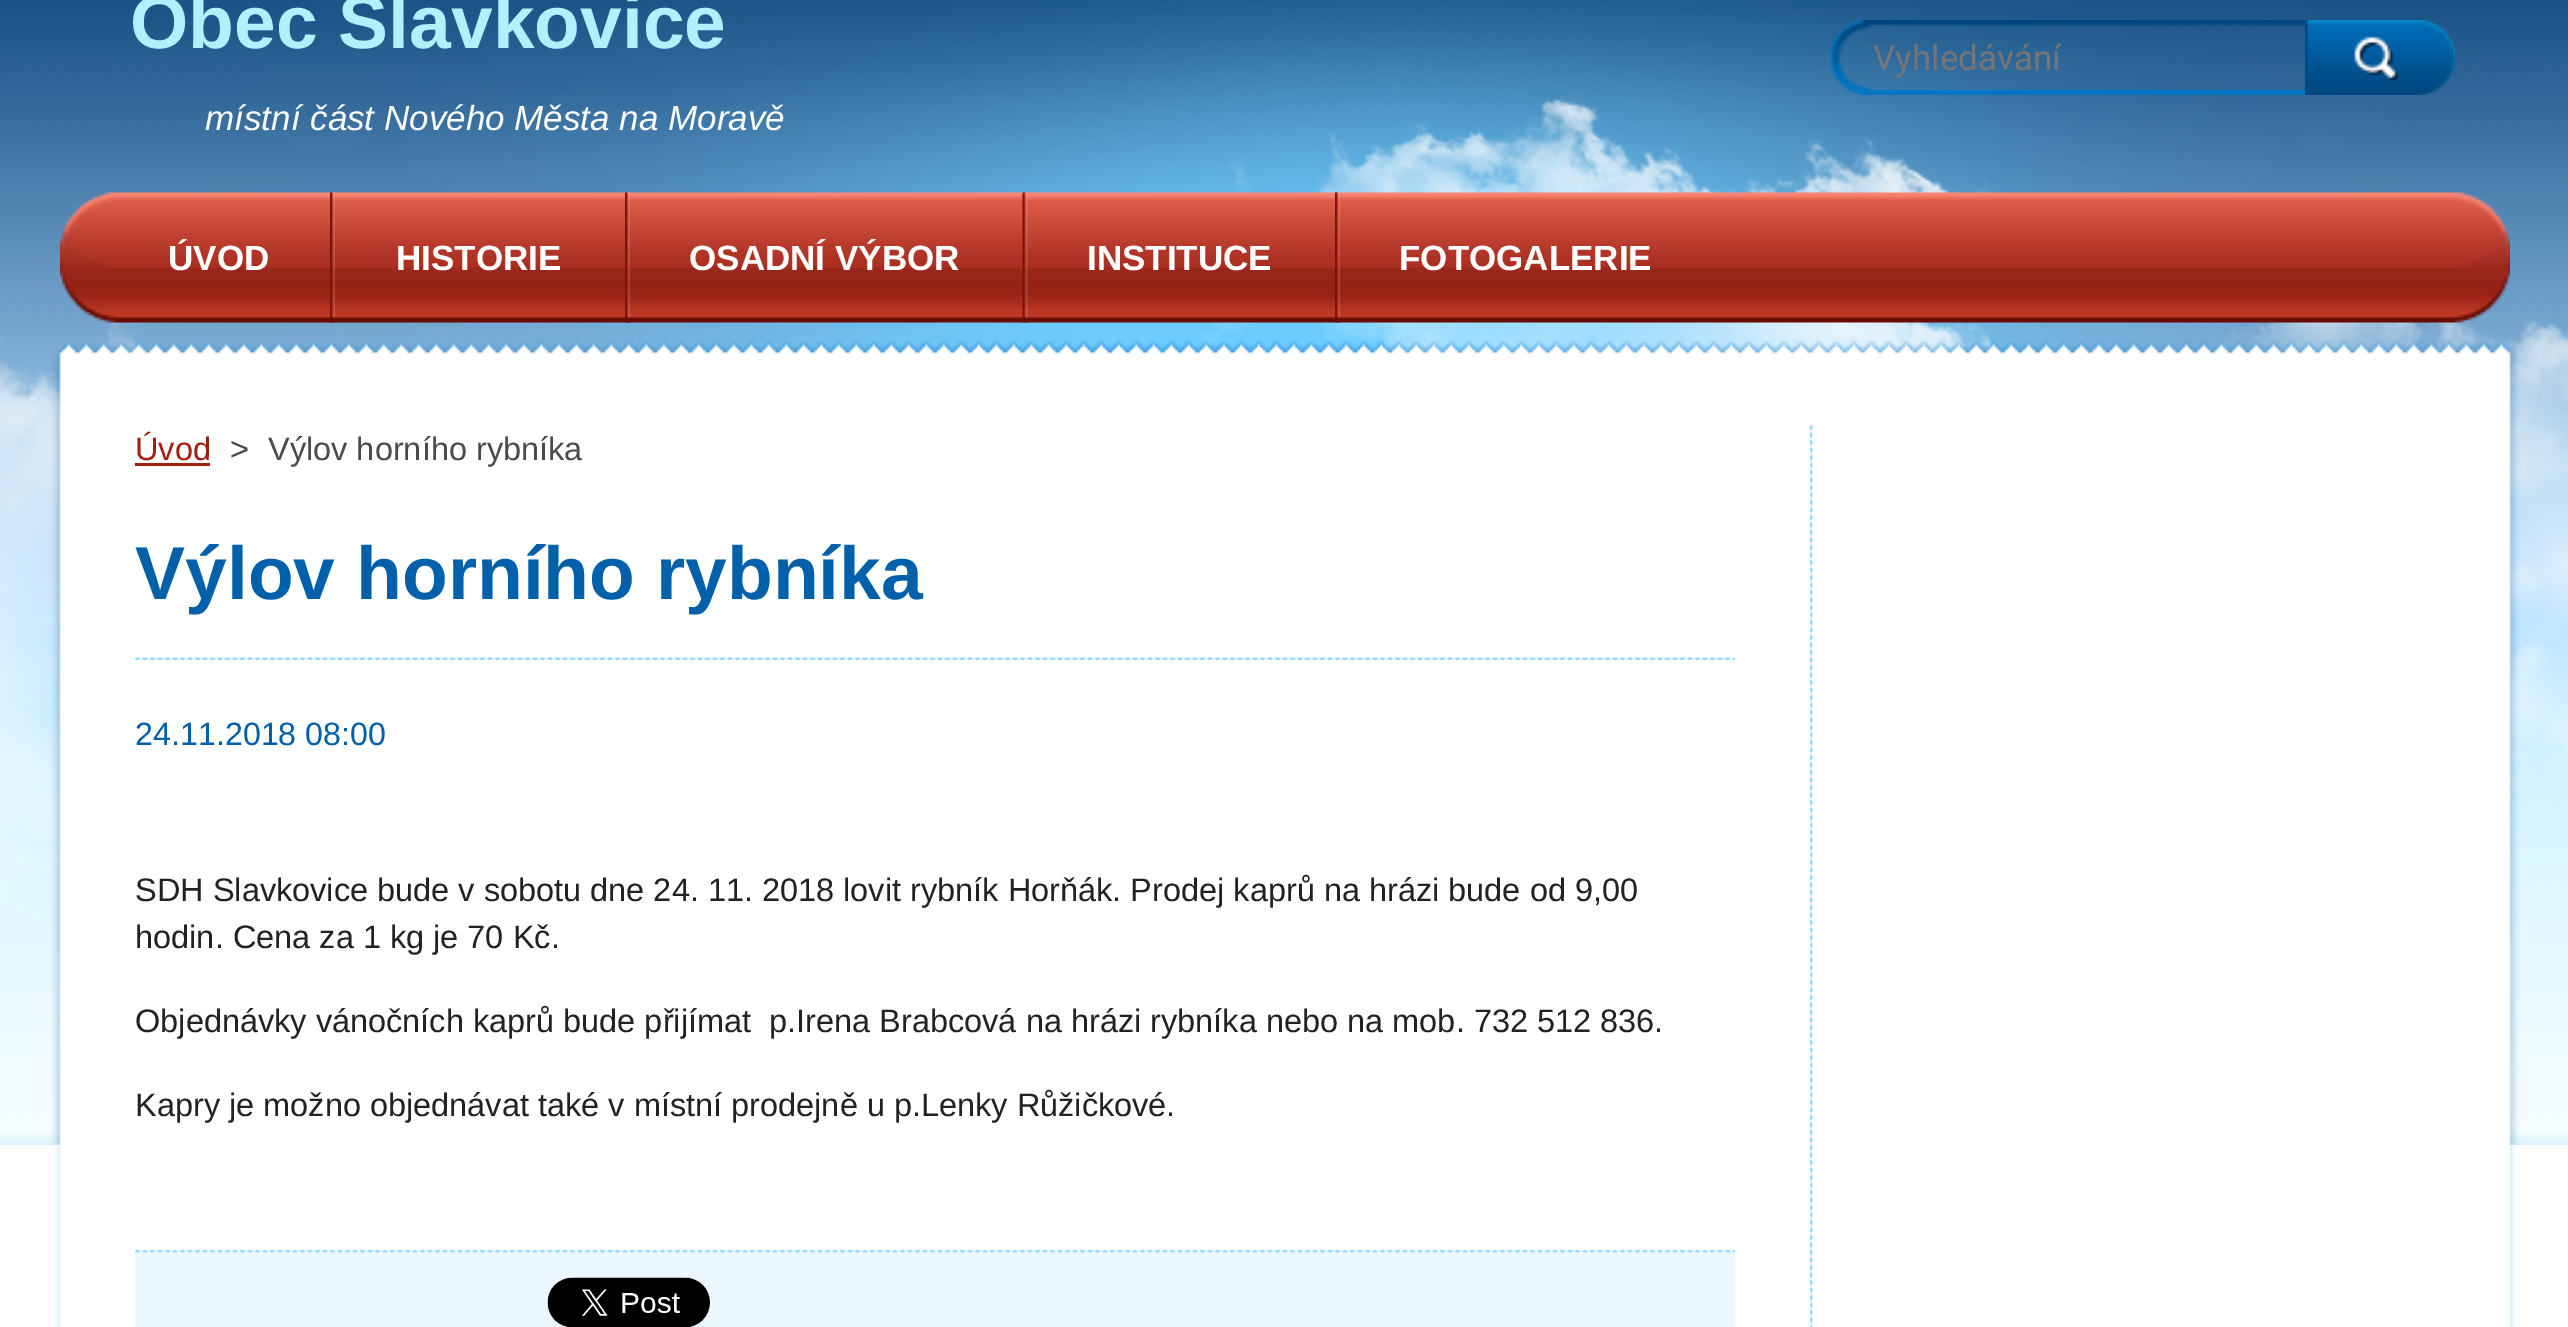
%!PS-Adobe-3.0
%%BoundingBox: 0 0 2568 1327
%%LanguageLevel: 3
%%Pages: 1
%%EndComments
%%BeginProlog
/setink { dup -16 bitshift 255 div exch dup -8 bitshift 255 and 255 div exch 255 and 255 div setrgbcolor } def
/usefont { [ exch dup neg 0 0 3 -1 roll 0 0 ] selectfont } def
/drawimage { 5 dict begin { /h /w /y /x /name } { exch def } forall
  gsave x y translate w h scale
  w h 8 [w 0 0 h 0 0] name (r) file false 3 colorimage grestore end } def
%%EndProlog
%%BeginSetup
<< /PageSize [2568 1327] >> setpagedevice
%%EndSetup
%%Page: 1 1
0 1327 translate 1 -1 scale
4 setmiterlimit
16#FFFFFF setink
0 0 2568 1327 rectfill
(img1.raw) 0 0 2568 1143 drawimage
(img2.raw) 0 0 2568 1145 drawimage
/LiberationSans-Bold 75 usefont
16#B1F1FF setink
130 48 moveto (Obec Slavkovice) show
/LiberationSans-Italic 35 usefont
16#FFFFFF setink
205 130 moveto (místní část Nového Města na Moravě) show
(img3.raw) 1830 20 475 75 drawimage
/Roboto-Regular 35 usefont
16#757575 setink
1873 70 moveto (Vyhledávání) show
(img4.raw) 2305 20 150 75 drawimage
(img5.raw) 60 192 2450 131 drawimage
/LiberationSans-Bold 35 usefont
16#FFFFFF setink
168 270 moveto (ÚVOD) show
(img6.raw) 330 192 5 131 drawimage
396 270 moveto (HISTORIE) show
(img7.raw) 625 192 5 131 drawimage
689 270 moveto (OSADNÍ VÝBOR) show
(img8.raw) 1022 192 6 131 drawimage
1087 270 moveto (INSTITUCE) show
(img9.raw) 1335 192 5 131 drawimage
1399 270 moveto (FOTOGALERIE) show
(img10.raw) 55 1145 2460 182 drawimage
(img11.raw) 1810 425 3 902 drawimage
/LiberationSans-Regular 32.5 usefont
16#A21E0F setink
135 460 moveto (Úvod) show
135 463 75 3 rectfill
16#4A4A4A setink
230 460 moveto (>) show
268 460 moveto (Výlov horního rybníka) show
(img12.raw) 135 657 1600 3 drawimage
/LiberationSans-Bold 75 usefont
16#0060A9 setink
135 599 moveto (Výlov horního rybníka) show
/LiberationSans-Regular 32.25 usefont
135 745 moveto (24.11.2018 08:00) show
/LiberationSans-Regular 32.5 usefont
16#222222 setink
[
    [(SDH Slavkovice bude v sobotu dne 24. 11. 2018 lovit rybník Horňák. Prodej kaprů na hrázi bude od 9,00) 135 901]
    [(hodin. Cena za 1 kg je 70 Kč.) 135 948]
    [(Objednávky vánočních kaprů bude přijímat  p.Irena Brabcová na hrázi rybníka nebo na mob. 732 512 836.) 135 1032]
    [(Kapry je možno objednávat také v místní prodejně u p.Lenky Růžičkové.) 135 1116]
] { aload pop moveto show } forall
(img13.raw) 135 1250 1600 3 drawimage
16#EBF8FF setink
135 1253 1600 74 rectfill
(img14.raw) 547 1277 163 50 drawimage
showpage
%%EOF
